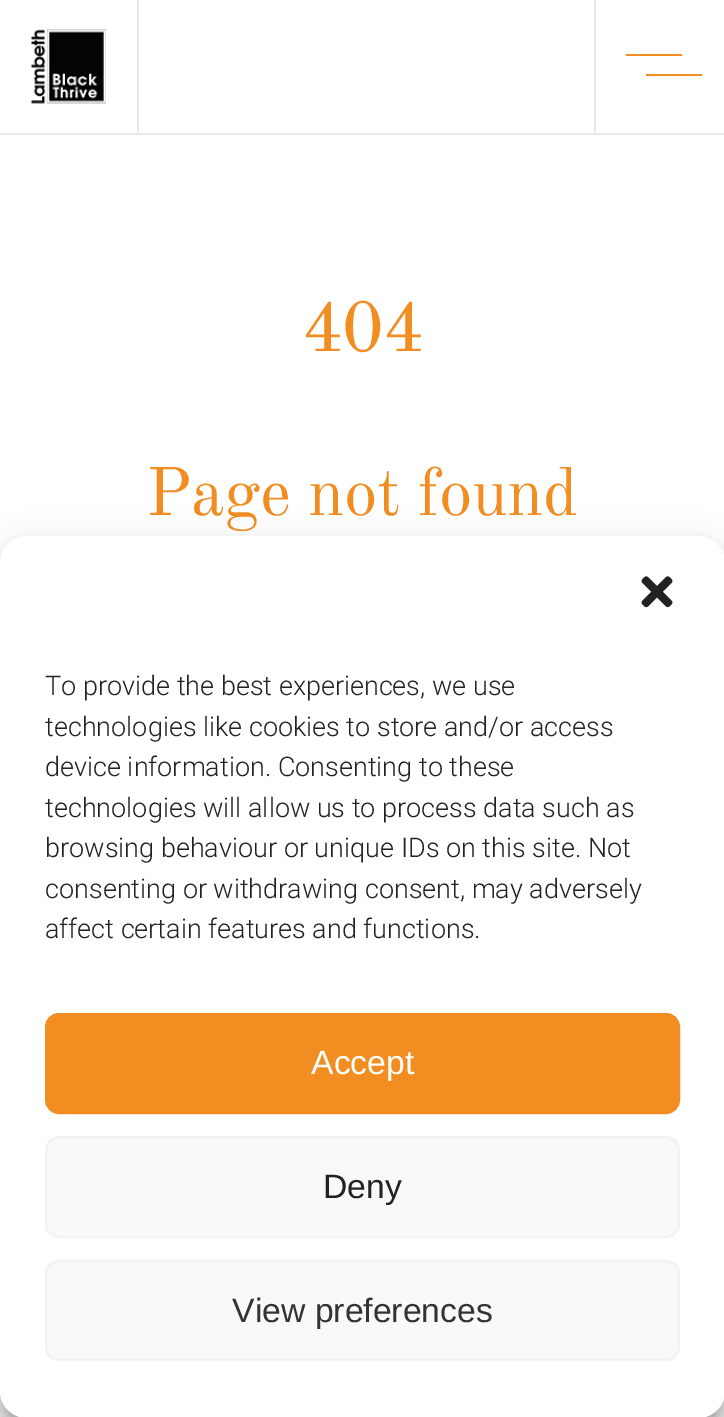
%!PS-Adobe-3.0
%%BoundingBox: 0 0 724 1417
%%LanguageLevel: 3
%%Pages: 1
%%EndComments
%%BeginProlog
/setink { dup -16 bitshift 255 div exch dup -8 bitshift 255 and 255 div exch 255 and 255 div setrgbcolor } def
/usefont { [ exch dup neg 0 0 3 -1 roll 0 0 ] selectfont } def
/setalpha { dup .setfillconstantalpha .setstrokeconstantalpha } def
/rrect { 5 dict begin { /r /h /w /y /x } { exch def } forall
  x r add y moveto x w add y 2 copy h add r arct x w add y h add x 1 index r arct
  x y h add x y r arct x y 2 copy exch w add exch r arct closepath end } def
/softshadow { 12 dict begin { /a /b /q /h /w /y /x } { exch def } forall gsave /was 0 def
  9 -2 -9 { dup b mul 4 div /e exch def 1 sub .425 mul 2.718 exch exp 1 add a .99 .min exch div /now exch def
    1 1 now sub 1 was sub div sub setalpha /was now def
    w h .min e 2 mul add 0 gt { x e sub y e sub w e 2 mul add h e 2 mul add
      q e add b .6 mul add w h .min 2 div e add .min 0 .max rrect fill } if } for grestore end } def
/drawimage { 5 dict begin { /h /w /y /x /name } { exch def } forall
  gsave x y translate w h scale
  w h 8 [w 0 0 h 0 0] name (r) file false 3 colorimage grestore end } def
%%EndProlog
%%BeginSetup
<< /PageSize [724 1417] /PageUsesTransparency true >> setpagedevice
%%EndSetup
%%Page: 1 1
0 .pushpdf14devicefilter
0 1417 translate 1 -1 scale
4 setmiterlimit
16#FFFFFF setink
0 0 724 1417 rectfill
16#ECE8E5 setink
0 133 724 2 rectfill
137 0 2 133 rectfill
(img1.raw) 31 29 75 75 drawimage
[
    [594 0 2 133 16#ECE8E5]
    [626 54 56 2 16#F18D21]
    [646 74 56 2 16#F18D21]
] { aload pop setink rectfill } forall
/OldStandardTT-Regular 72 usefont
302 351 moveto -1.5 0 (404) ashow
/OldStandardTT-Regular 67.5 usefont
146 515 moveto -0.7 0 (Page not found) ashow
16#000000 setink
0 549 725 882 27 7 0.23 softshadow
0 558 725 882 27 22.5 0.19 softshadow
16#FFFFFF setink
0 536 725 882 27 rrect fill
(img2.raw) 641 576 32 32 drawimage
/Roboto-Light 27 usefont
16#222222 setink
[
    [(To provide the best experiences, we use) 45 695]
    [(technologies like cookies to store and/or access) 45 736]
    [(device information. Consenting to these) 45 776]
    [(technologies will allow us to process data such as) 45 817]
    [(browsing behaviour or unique IDs on this site. Not) 45 857]
    [(consenting or withdrawing consent, may adversely) 45 898]
    [(affect certain features and functions.) 45 938]
] { aload pop moveto show } forall
16#F18D21 setink
46 1014 633 99 13 rrect gsave fill grestore
2 setlinewidth
stroke
/LiberationSans-Regular 33.75 usefont
16#FFFFFF setink
311 1074 moveto (Accept) show
16#F9F9F9 setink
46 1137 633 100 13 rrect gsave fill grestore
16#F2F2F2 setink
stroke
16#222222 setink
323 1198 moveto (Deny) show
16#F9F9F9 setink
46 1261 633 99 13 rrect gsave fill grestore
16#F2F2F2 setink
stroke
16#333333 setink
232 1322 moveto (View preferences) show
.poppdf14devicefilter showpage
%%EOF
